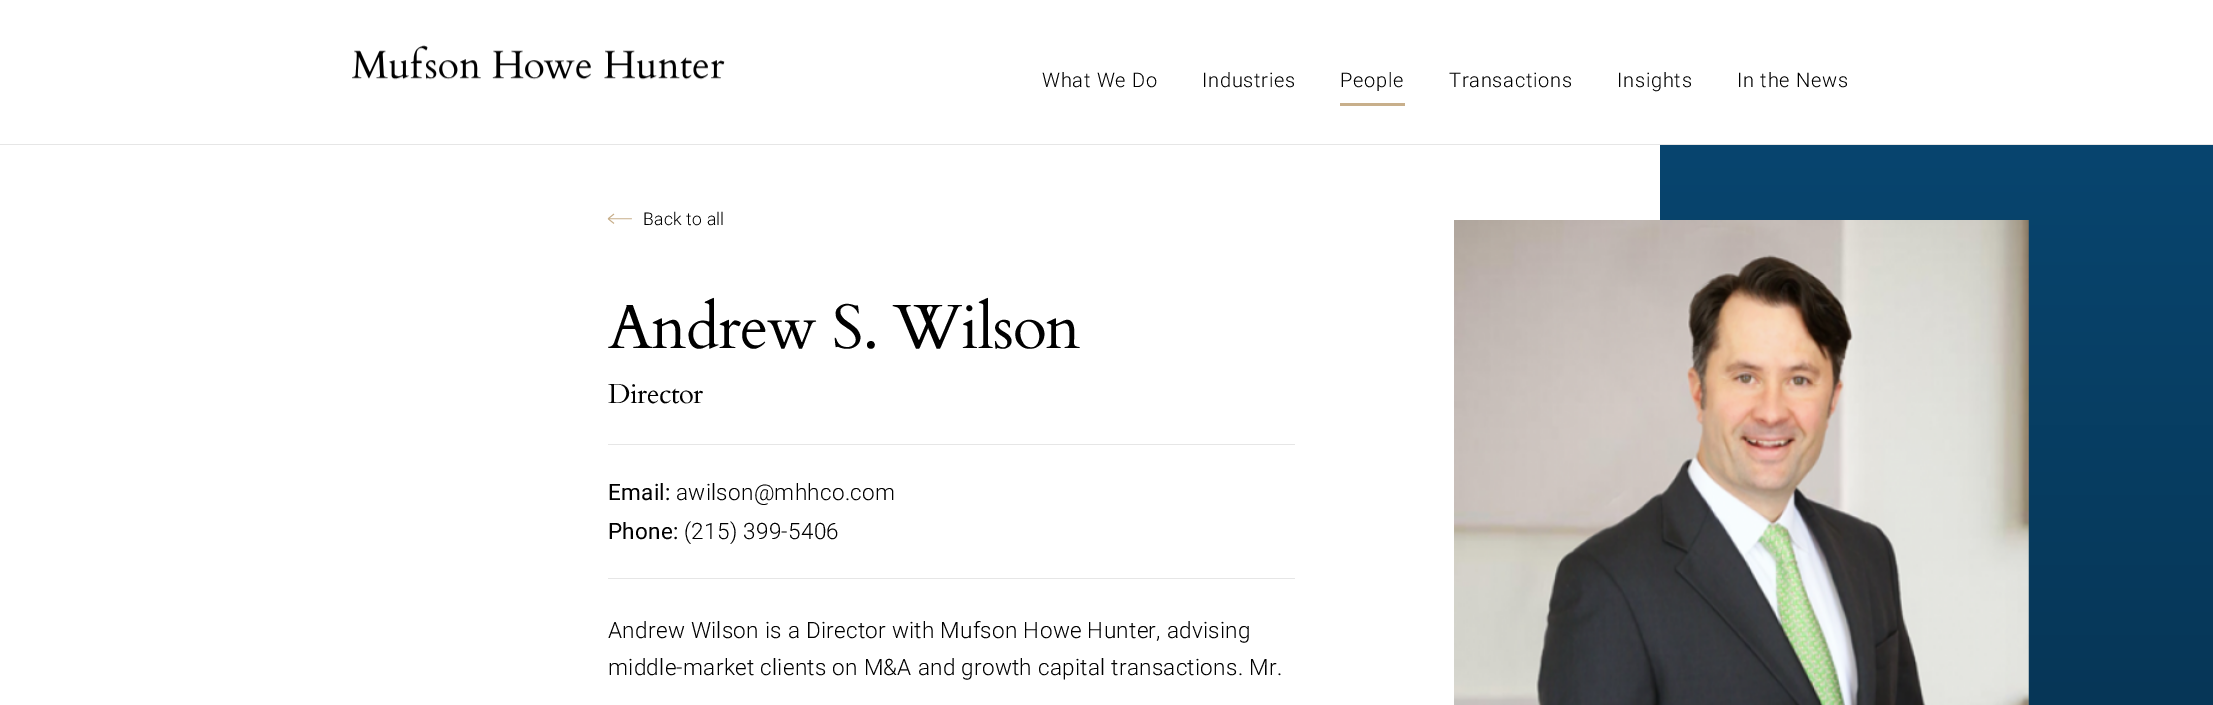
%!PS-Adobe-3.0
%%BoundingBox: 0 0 2213 705
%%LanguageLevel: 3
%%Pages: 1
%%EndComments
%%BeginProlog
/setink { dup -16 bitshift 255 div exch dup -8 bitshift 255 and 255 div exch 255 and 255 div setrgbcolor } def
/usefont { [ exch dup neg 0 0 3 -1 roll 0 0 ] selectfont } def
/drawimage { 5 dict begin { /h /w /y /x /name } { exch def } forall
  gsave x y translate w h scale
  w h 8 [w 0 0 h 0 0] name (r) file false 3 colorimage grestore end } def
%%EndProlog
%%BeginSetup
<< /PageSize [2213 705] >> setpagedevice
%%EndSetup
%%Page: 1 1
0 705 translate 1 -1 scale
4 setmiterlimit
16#FFFFFF setink
0 0 2213 705 rectfill
16#E6E6E6 setink
0 144 2213 1 rectfill
(img1.raw) 352 45 373 35 drawimage
/Roboto-Light 20 usefont
16#000000 setink
1042 87 moveto 0.75 0 (What We Do) ashow
1202 87 moveto 0.75 0 (Industries) ashow
1340 87 moveto 0.75 0 (People) ashow
16#C8AF8B setink
1340 103 65 3 rectfill
16#000000 setink
1449 87 moveto 0.75 0 (Transactions) ashow
1617 87 moveto 0.75 0 (Insights) ashow
1737 87 moveto 0.75 0 (In the News) ashow
(img2.raw) 607 213 25 11 drawimage
/Roboto-Light 17.5 usefont
643 225 moveto 0.25 0 (Back to all) ashow
/Cardo-Regular 62.5 usefont
608 348 moveto -1 0 (Andrew S. Wilson) ashow
gsave 1660 145 moveto 2213 145 lineto 2213 705 lineto 1660 705 lineto closepath clip newpath
<< /ShadingType 2 /ColorSpace /DeviceRGB /Coords [1937 145 1937 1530] /Extend [true true] /Function << /FunctionType 2 /Domain [0 1] /C0 [0.031 0.271 0.435] /C1 [0.016 0.125 0.2] /N 1 >> >> shfill grestore
(img3.raw) 1454 220 575 485 drawimage
/Cardo-Regular 27.5 usefont
608 403 moveto -0.5 0 (Director) ashow
16#E6E6E6 setink
608 444 687 1 rectfill
608 578 687 1 rectfill
/Roboto-Regular 22.5 usefont
16#000000 setink
608 500 moveto 0.3 0 (Email:) ashow
/Roboto-Light 22.5 usefont
676 500 moveto 0.3 0 (awilson@mhhco.com) ashow
/Roboto-Regular 22.5 usefont
608 539 moveto 0.3 0 (Phone:) ashow
/Roboto-Light 22.5 usefont
684 539 moveto 0.3 0 (\(215\) 399-5406) ashow
608 638 moveto 0.3 0 (Andrew Wilson is a Director with Mufson Howe Hunter, advising) ashow
608 675 moveto 0.3 0 (middle-market clients on M&A and growth capital transactions. Mr.) ashow
showpage
%%EOF
